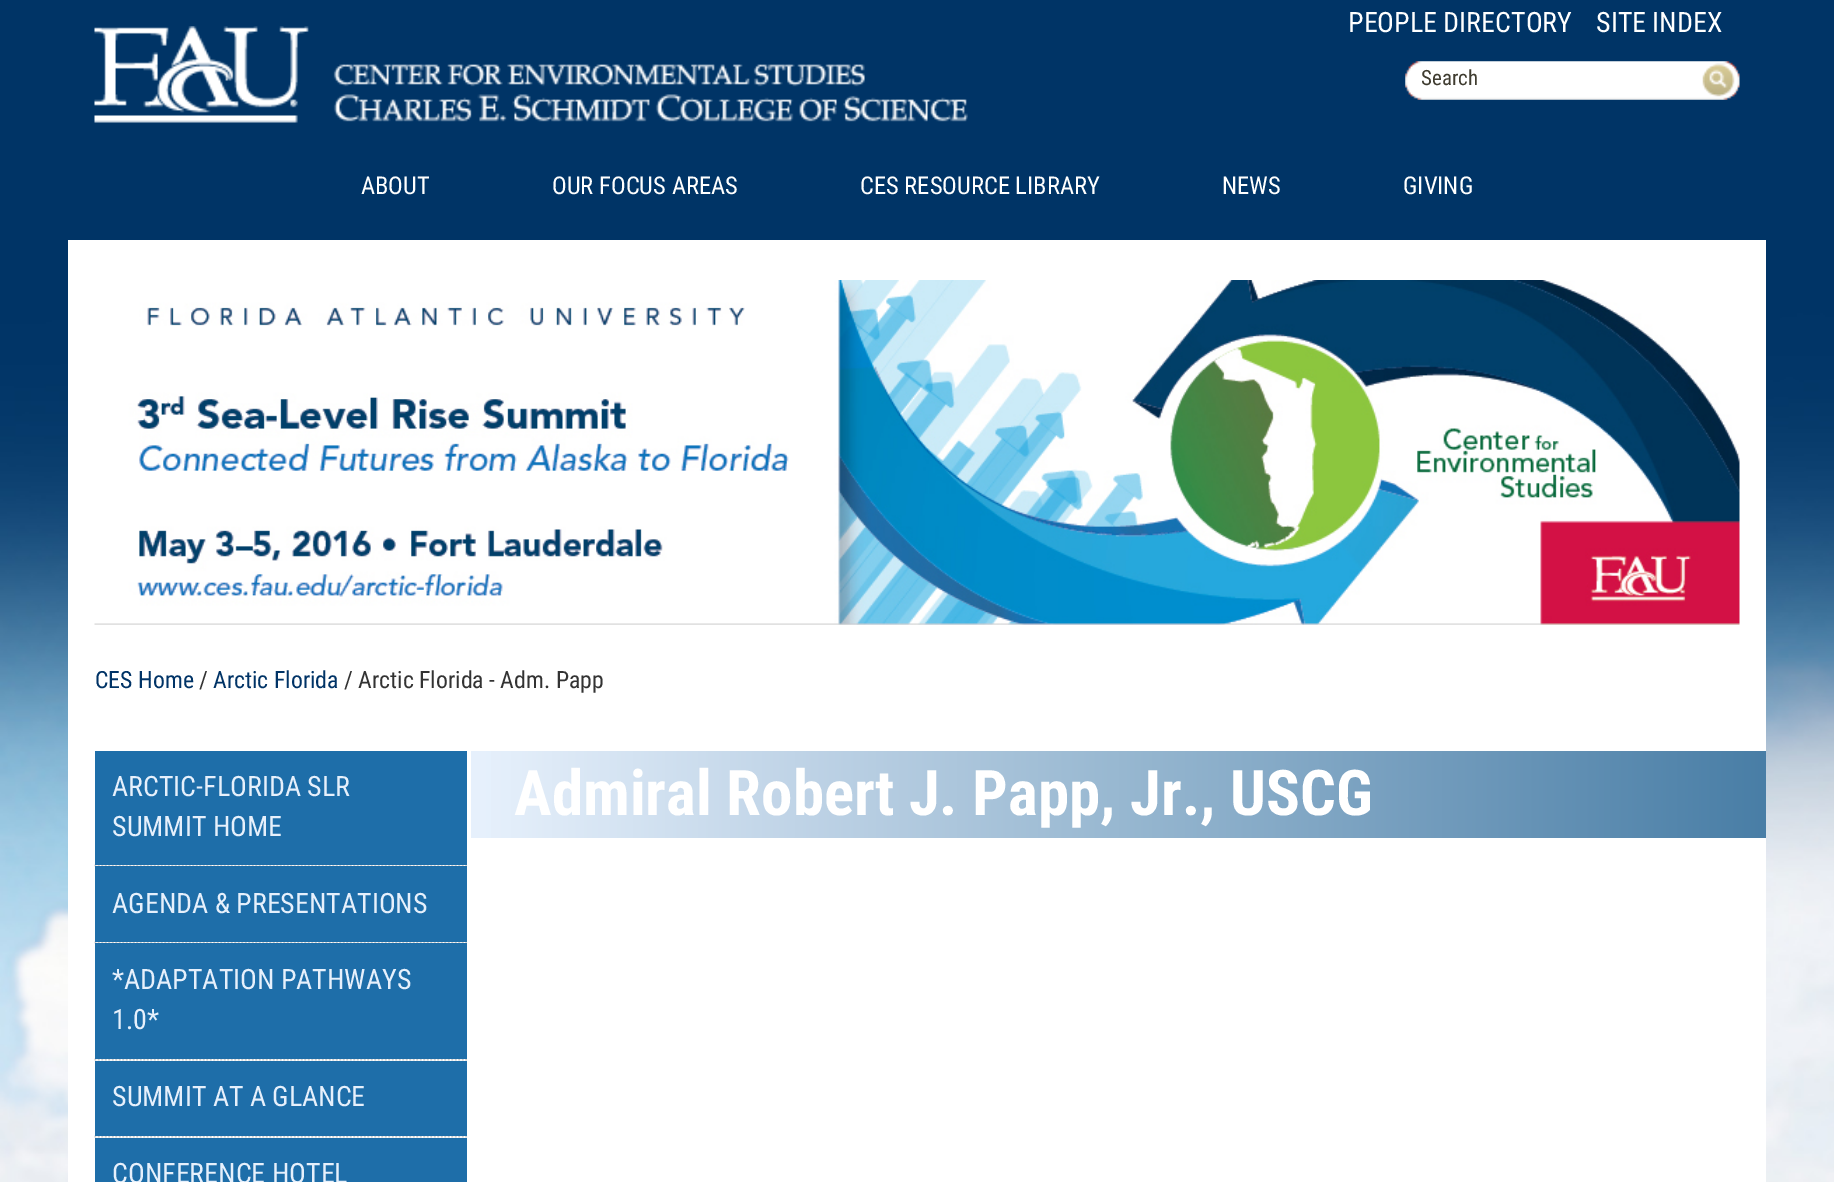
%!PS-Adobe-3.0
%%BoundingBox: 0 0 1834 1182
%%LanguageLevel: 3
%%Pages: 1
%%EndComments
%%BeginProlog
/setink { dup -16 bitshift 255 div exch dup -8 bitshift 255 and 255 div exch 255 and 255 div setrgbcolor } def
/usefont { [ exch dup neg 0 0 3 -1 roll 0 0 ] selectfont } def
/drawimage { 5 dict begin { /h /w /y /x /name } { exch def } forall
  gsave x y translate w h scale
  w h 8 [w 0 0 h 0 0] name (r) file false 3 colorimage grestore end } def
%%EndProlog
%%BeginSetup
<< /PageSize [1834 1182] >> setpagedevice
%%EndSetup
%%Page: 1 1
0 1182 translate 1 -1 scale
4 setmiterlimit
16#FFFFFF setink
0 0 1834 1182 rectfill
(img1.raw) 0 0 1834 1182 drawimage
(img2.raw) 94 26 874 97 drawimage
/RobotoCondensed-Regular 28 usefont
1348 32 moveto (PEOPLE DIRECTORY) show
1596 32 moveto (SITE INDEX) show
(img3.raw) 1405 61 335 39 drawimage
/RobotoCondensed-Regular 21 usefont
16#3F3C30 setink
1421 85 moveto (Search) show
(img4.raw) 1702 63 33 34 drawimage
/RobotoCondensed-Regular 24.5 usefont
16#FFFFFF setink
[
    [(ABOUT) 361 194]
    [(OUR FOCUS AREAS) 552 194]
    [(CES RESOURCE LIBRARY) 860 194]
    [(NEWS) 1222 194]
    [(GIVING) 1403 194]
] { aload pop moveto show } forall
68 240 1698 942 rectfill
(img5.raw) 94 280 1646 345 drawimage
/RobotoCondensed-Regular 23.75 usefont
16#003366 setink
95 688 moveto (CES Home) show
16#333333 setink
199 688 moveto (/) show
16#003366 setink
213 688 moveto (Arctic Florida) show
16#333333 setink
344 688 moveto (/ Arctic Florida - Adm. Papp) show
16#CCCCCC setink
1.8 setlinewidth
[1.75 1.75] 0 setdash
94.5 865.5 moveto 467 865.5 lineto stroke
16#1E6EA9 setink
95 751 372 114 rectfill
/RobotoCondensed-Regular 28 usefont
16#E6F0FC setink
112 796 moveto (ARCTIC-FLORIDA SLR) show
112 836 moveto (SUMMIT HOME) show
16#CCCCCC setink
94.5 942.5 moveto 467 942.5 lineto stroke
16#1E6EA9 setink
95 866 372 76 rectfill
16#E6F0FC setink
112 913 moveto (AGENDA & PRESENTATIONS) show
16#CCCCCC setink
94.5 1059.5 moveto 467 1059.5 lineto stroke
16#1E6EA9 setink
95 943 372 116 rectfill
16#E6F0FC setink
112 989 moveto (*ADAPTATION PATHWAYS) show
112 1029 moveto (1.0*) show
16#CCCCCC setink
94.5 1136.5 moveto 467 1136.5 lineto stroke
16#1E6EA9 setink
95 1061 372 75 rectfill
16#E6F0FC setink
112 1106 moveto (SUMMIT AT A GLANCE) show
16#1E6EA9 setink
95 1138 372 44 rectfill
16#E6F0FC setink
112 1183 moveto (CONFERENCE HOTEL) show
gsave 471 751 moveto 1766 751 lineto 1766 838 lineto 471 838 lineto closepath clip newpath
<< /ShadingType 2 /ColorSpace /DeviceRGB /Coords [471 795 1766 795] /Extend [true true] /Function << /FunctionType 3 /Domain [0 1] /Functions [<< /FunctionType 2 /Domain [0 1] /C0 [0.902 0.941 0.988] /C1 [0.902 0.941 0.988] /N 1 >> << /FunctionType 2 /Domain [0 1] /C0 [0.902 0.941 0.988] /C1 [0.286 0.494 0.651] /N 1 >>] /Bounds [0.01] /Encode [0 1 0 1] >> >> shfill grestore
/RobotoCondensed-Bold 63 usefont
16#FFFFFF setink
514 815 moveto (Admiral Robert J. Papp, Jr., USCG) show
showpage
%%EOF
